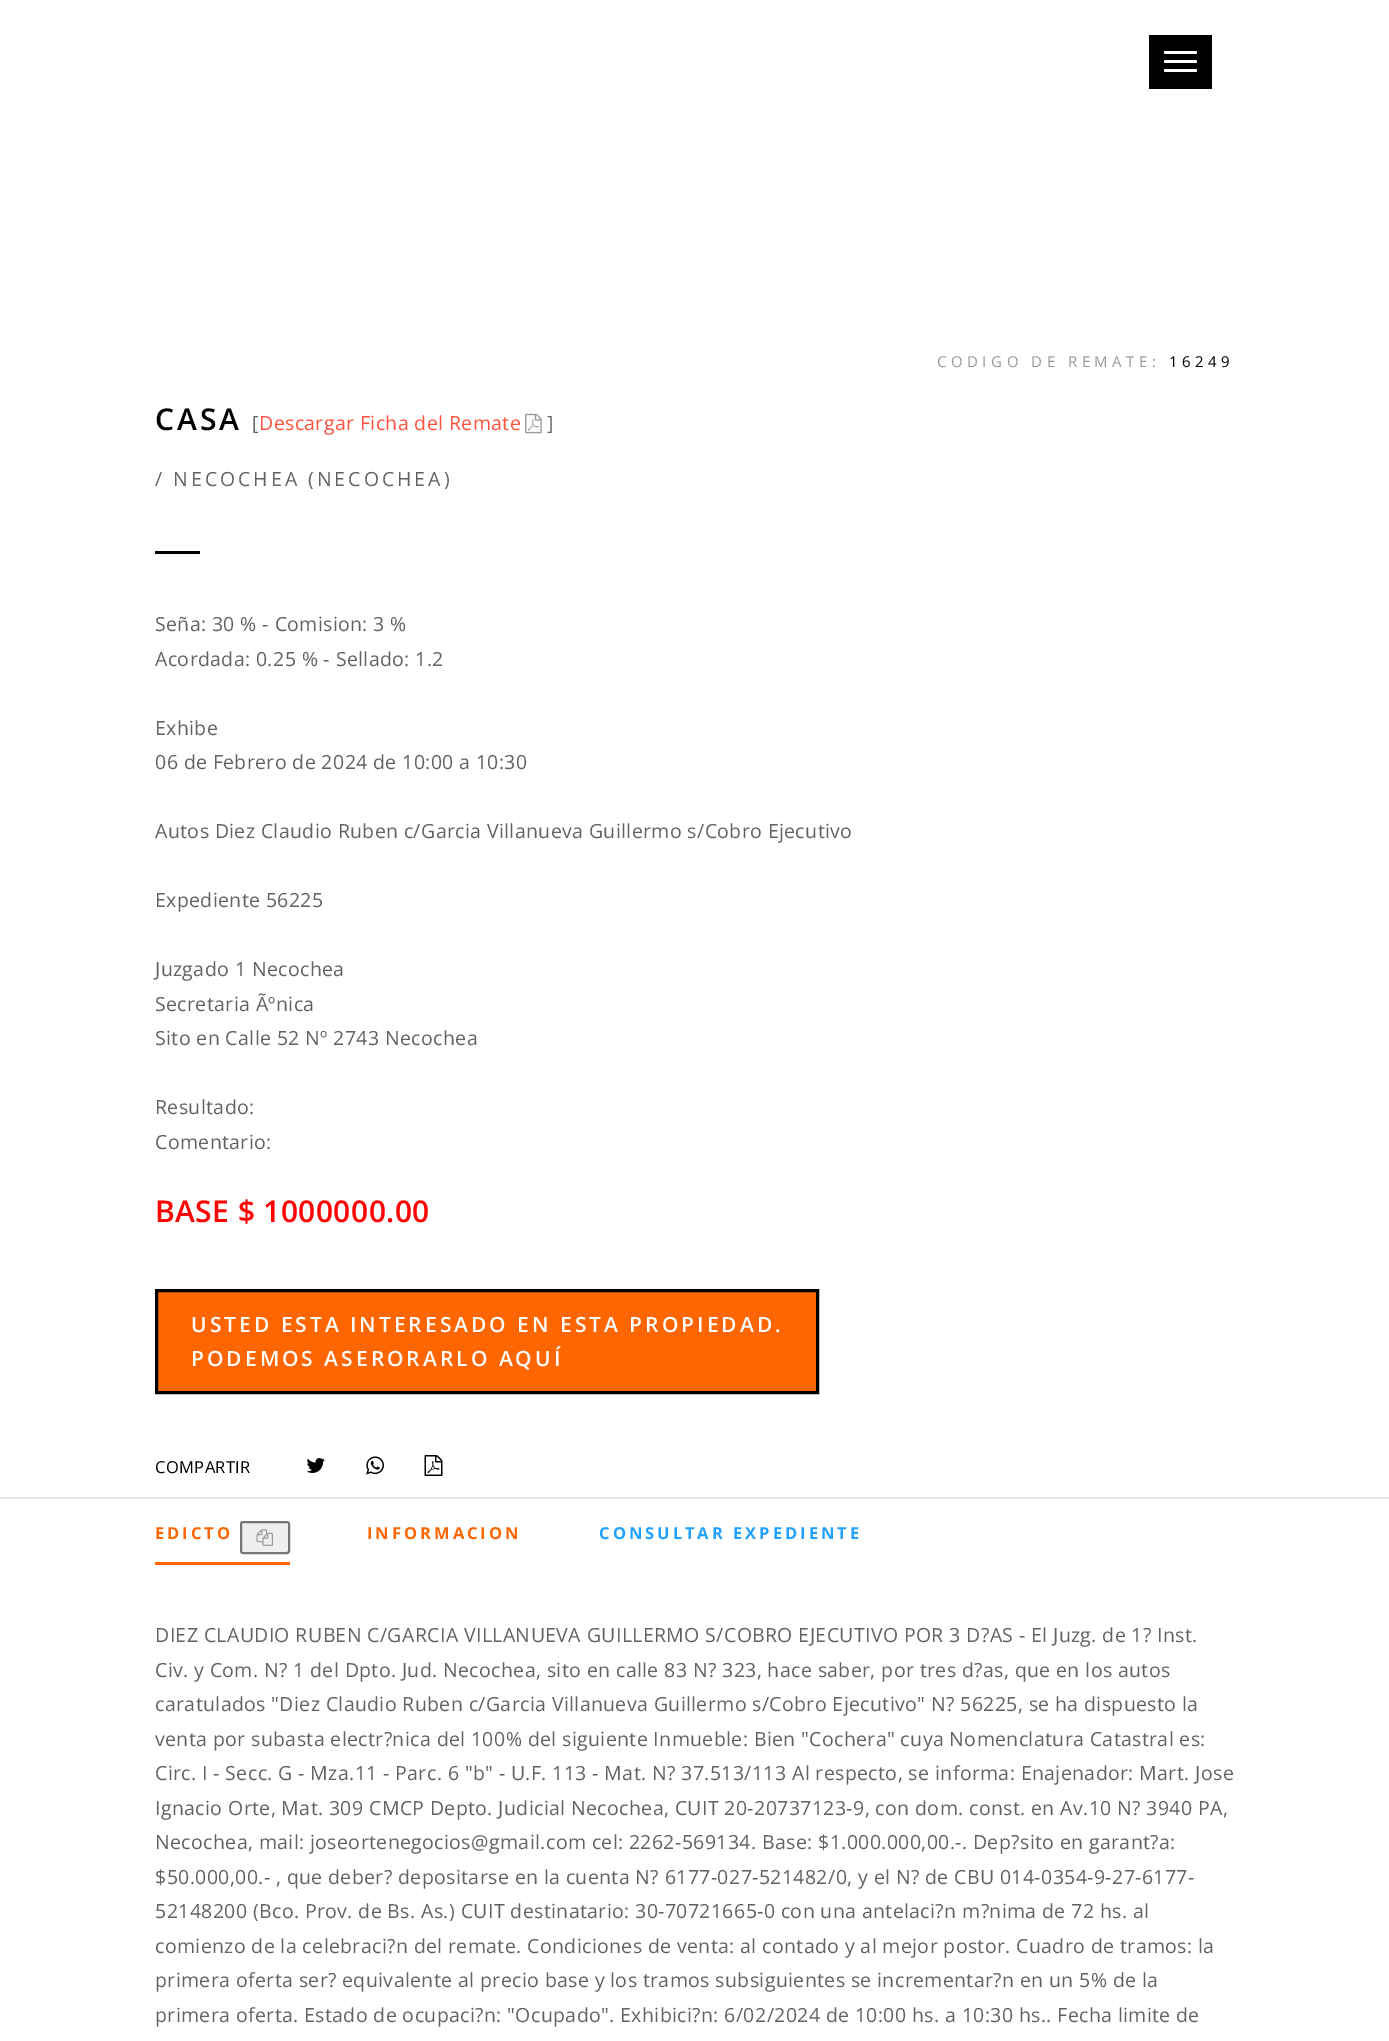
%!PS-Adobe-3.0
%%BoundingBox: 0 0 1389 2041
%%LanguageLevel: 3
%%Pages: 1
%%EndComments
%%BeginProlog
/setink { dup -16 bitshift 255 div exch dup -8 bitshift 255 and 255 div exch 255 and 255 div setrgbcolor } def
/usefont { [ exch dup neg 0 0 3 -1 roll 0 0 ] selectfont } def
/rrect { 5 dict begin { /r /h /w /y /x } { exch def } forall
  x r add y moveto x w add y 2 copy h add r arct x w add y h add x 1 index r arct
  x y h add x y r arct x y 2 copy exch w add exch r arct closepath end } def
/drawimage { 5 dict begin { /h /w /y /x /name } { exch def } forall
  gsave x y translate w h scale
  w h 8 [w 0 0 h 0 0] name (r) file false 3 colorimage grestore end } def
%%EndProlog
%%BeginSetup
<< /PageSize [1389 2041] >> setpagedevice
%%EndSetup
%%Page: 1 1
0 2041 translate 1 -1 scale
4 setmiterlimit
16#FFFFFF setink
0 0 1389 2041 rectfill
16#000000 setink
1149 35 63 54 rectfill
16#FFFFFF setink
1164 51 33 3 1.5 rrect fill
1164 60 33 3 1.5 rrect fill
1164 69 33 3 1.5 rrect fill
/OpenSans-Regular 15 usefont
16#999999 setink
937 367 moveto 4.5 0 (CODIGO DE REMATE:) ashow
16#000000 setink
1169 367 moveto 4.5 0 (16249) ashow
/OpenSans-SemiBold 30 usefont
155 430 moveto 3 0 (CASA) ashow
/OpenSans-Regular 19.5 usefont
16#626262 setink
252 430 moveto 0.39 0 ([) ashow
16#FF513B setink
259 430 moveto 0.39 0 (Descargar Ficha del Remate) ashow
(img1.raw) 525 413 17 21 drawimage
16#626262 setink
547 430 moveto 0.39 0 (]) ashow
155 486 moveto 3 0 (/ NECOCHEA \(NECOCHEA\)) ashow
16#000000 setink
155 551 45 3 rectfill
16#626262 setink
155 631 moveto 0.39 0 (Seña: 30 % - Comision: 3 %) ashow
155 666 moveto 0.39 0 (Acordada: 0.25 % - Sellado: 1.2) ashow
155 735 moveto 0.39 0 (Exhibe) ashow
155 769 moveto 0.39 0 (06 de Febrero de 2024 de 10:00 a 10:30) ashow
155 838 moveto 0.39 0 (Autos Diez Claudio Ruben c/Garcia Villanueva Guillermo s/Cobro Ejecutivo) ashow
155 907 moveto 0.39 0 (Expediente 56225) ashow
155 976 moveto 0.39 0 (Juzgado 1 Necochea) ashow
155 1011 moveto 0.39 0 (Secretaria Ãºnica) ashow
155 1045 moveto 0.39 0 (Sito en Calle 52 Nº 2743 Necochea) ashow
155 1114 moveto 0.39 0 (Resultado:) ashow
155 1149 moveto 0.39 0 (Comentario:) ashow
/OpenSans-SemiBold 30 usefont
16#FF0000 setink
155 1222 moveto 0.39 0 (BASE $ 1000000.00) ashow
16#FF6600 setink
156.5 1290.5 moveto 817.5 1290.5 lineto 817.5 1392.5 lineto 156.5 1392.5 lineto closepath gsave fill grestore
16#000000 setink
3 setlinewidth
stroke
/OpenSans-SemiBold 21 usefont
16#FFFFFF setink
191 1332 moveto 3 0 (USTED ESTA INTERESADO EN ESTA PROPIEDAD.) ashow
191 1366 moveto 3 0 (PODEMOS ASERORARLO AQUÍ) ashow
/OpenSans-Regular 16.5 usefont
16#000000 setink
155 1473 moveto 0.39 0 (COMPARTIR) ashow
(img2.raw) 306 1458 19 15 drawimage
(img3.raw) 366 1456 18 19 drawimage
(img4.raw) 424 1455 19 21 drawimage
16#E5E5E5 setink
0 1497 1389 2 rectfill
16#FF6600 setink
155 1562 135 3 rectfill
/OpenSans-Bold 16.5 usefont
155 1539 moveto 3 0 (EDICTO) ashow
16#EFEFEF setink
241 1522 48 31 2 rrect gsave fill grestore
16#767676 setink
2 setlinewidth
stroke
(img5.raw) 256 1529 17 17 drawimage
16#FF6600 setink
367 1539 moveto 3 0 (INFORMACION) ashow
16#20A1FF setink
599 1539 moveto 3 0 (CONSULTAR EXPEDIENTE) ashow
/OpenSans-Regular 19.5 usefont
16#626262 setink
155 1642 moveto 0.39 0 (DIEZ CLAUDIO RUBEN C/GARCIA VILLANUEVA GUILLERMO S/COBRO EJECUTIVO POR 3 D?AS - El Juzg. de 1? Inst.) ashow
155 1677 moveto 0.39 0 (Civ. y Com. N? 1 del Dpto. Jud. Necochea, sito en calle 83 N? 323, hace saber, por tres d?as, que en los autos) ashow
155 1711 moveto 0.39 0 (caratulados "Diez Claudio Ruben c/Garcia Villanueva Guillermo s/Cobro Ejecutivo" N? 56225, se ha dispuesto la) ashow
155 1746 moveto 0.39 0 (venta por subasta electr?nica del 100% del siguiente Inmueble: Bien "Cochera" cuya Nomenclatura Catastral es:) ashow
155 1780 moveto 0.39 0 (Circ. I - Secc. G - Mza.11 - Parc. 6 "b" - U.F. 113 - Mat. N? 37.513/113 Al respecto, se informa: Enajenador: Mart. Jose) ashow
155 1815 moveto 0.39 0 (Ignacio Orte, Mat. 309 CMCP Depto. Judicial Necochea, CUIT 20-20737123-9, con dom. const. en Av.10 N? 3940 PA,) ashow
155 1849 moveto 0.39 0 (Necochea, mail: joseortenegocios@gmail.com cel: 2262-569134. Base: $1.000.000,00.-. Dep?sito en garant?a:) ashow
155 1884 moveto 0.39 0 ($50.000,00.- , que deber? depositarse en la cuenta N? 6177-027-521482/0, y el N? de CBU 014-0354-9-27-6177-) ashow
155 1918 moveto 0.39 0 (52148200 \(Bco. Prov. de Bs. As.\) CUIT destinatario: 30-70721665-0 con una antelaci?n m?nima de 72 hs. al) ashow
155 1953 moveto 0.39 0 (comienzo de la celebraci?n del remate. Condiciones de venta: al contado y al mejor postor. Cuadro de tramos: la) ashow
155 1987 moveto 0.39 0 (primera oferta ser? equivalente al precio base y los tramos subsiguientes se incrementar?n en un 5% de la) ashow
155 2022 moveto 0.39 0 (primera oferta. Estado de ocupaci?n: "Ocupado". Exhibici?n: 6/02/2024 de 10:00 hs. a 10:30 hs.. Fecha limite de) ashow
showpage
%%EOF
